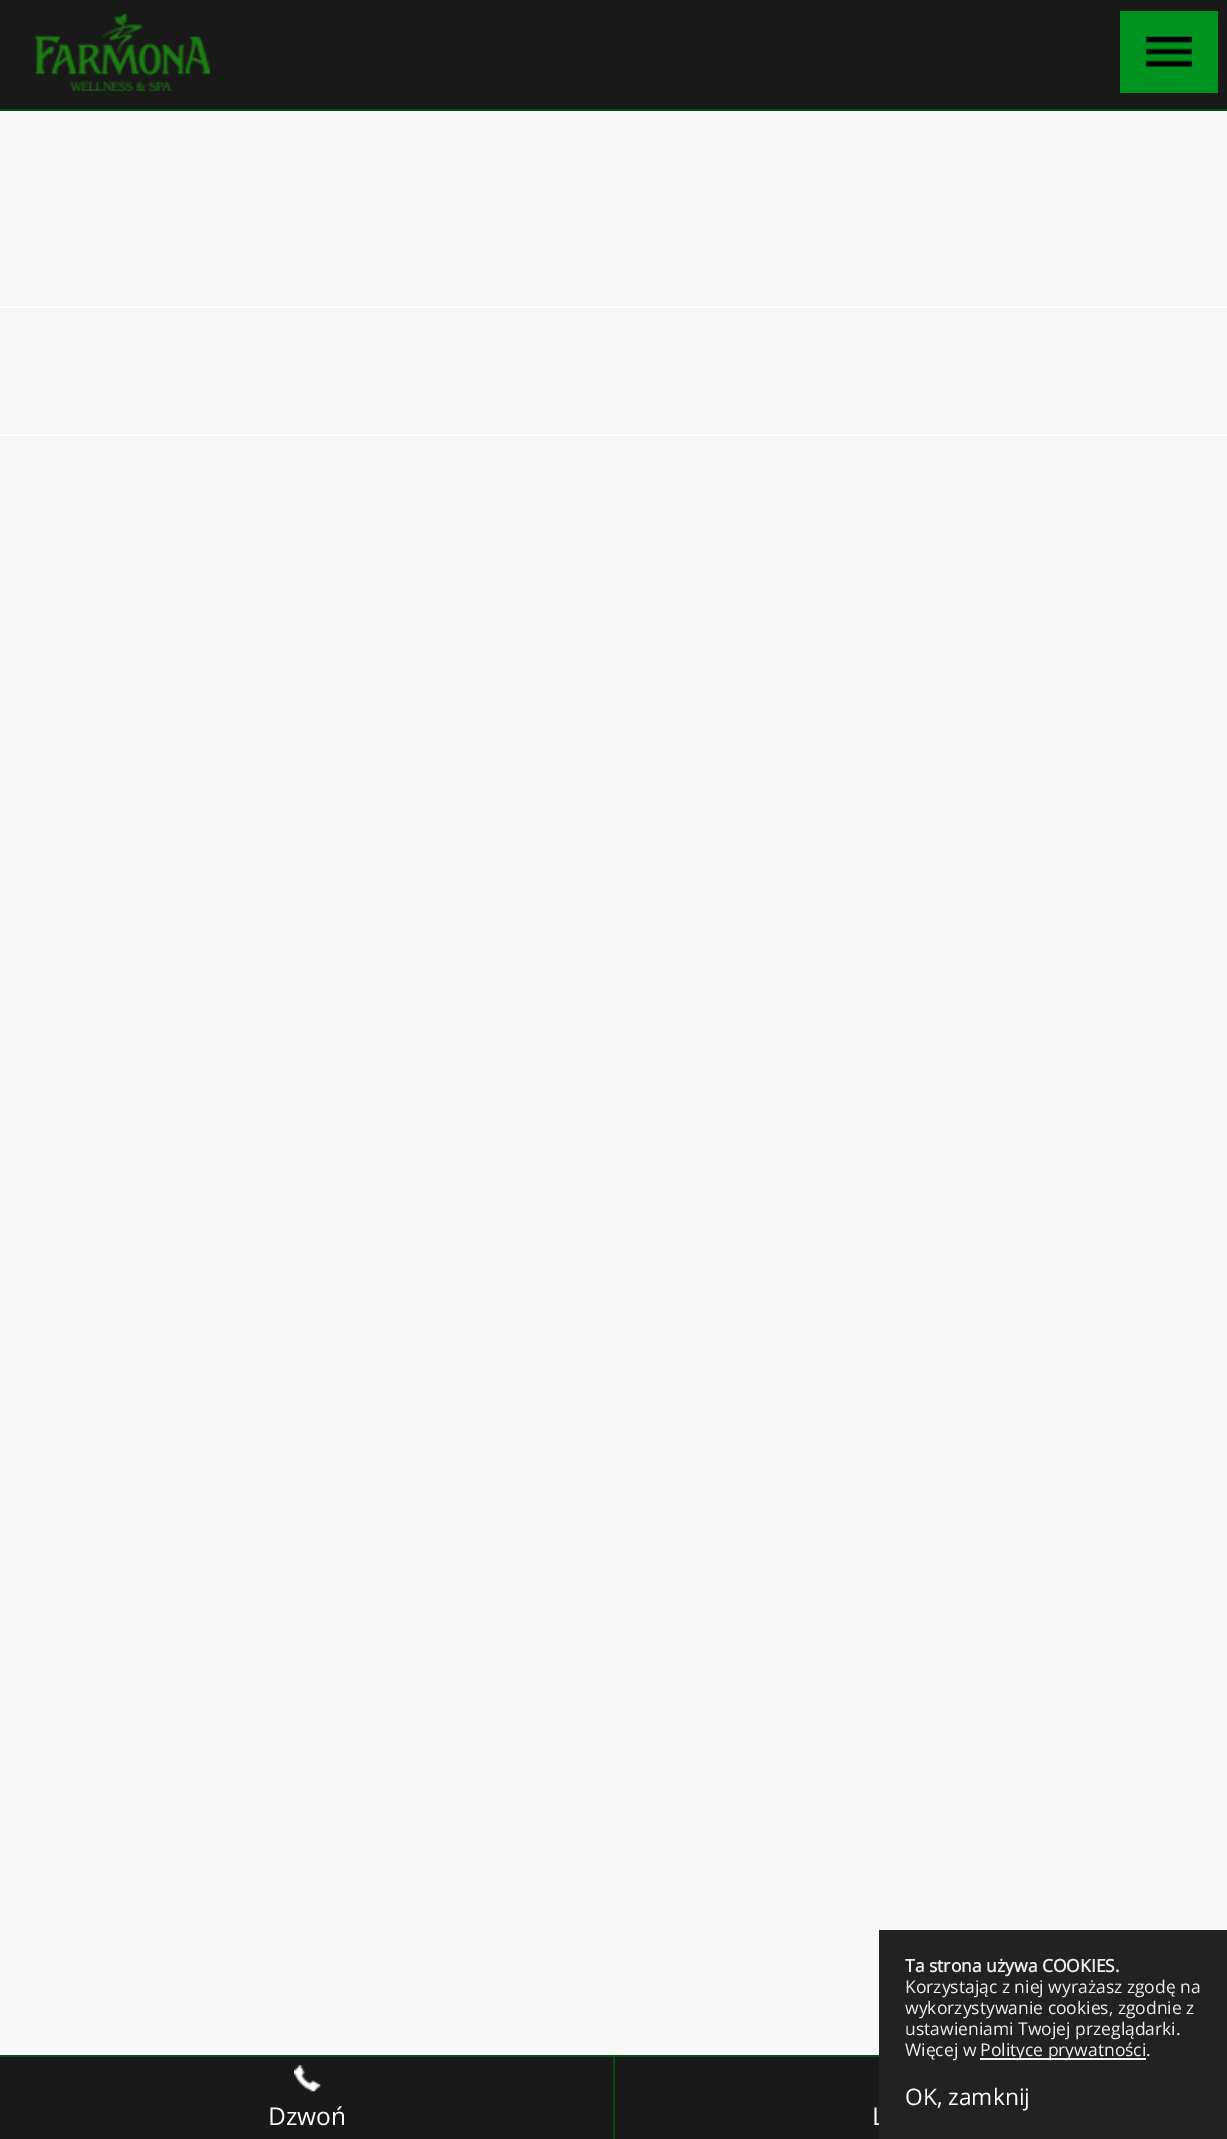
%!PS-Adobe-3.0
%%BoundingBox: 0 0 1227 2139
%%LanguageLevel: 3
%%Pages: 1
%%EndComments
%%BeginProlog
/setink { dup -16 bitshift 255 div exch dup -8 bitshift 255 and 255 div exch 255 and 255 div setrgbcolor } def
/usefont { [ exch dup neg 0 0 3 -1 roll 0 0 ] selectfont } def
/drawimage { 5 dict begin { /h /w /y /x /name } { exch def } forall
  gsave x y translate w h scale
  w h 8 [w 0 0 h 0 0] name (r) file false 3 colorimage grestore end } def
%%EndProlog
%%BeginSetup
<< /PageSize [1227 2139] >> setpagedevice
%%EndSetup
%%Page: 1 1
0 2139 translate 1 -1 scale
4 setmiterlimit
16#F7F7F7 setink
0 0 1227 2139 rectfill
16#191919 setink
0 0 1227 109 rectfill
16#00921F setink
1120 11 98 82 rectfill
(img1.raw) 1146 36 46 31 drawimage
16#005011 setink
0 109 1227 2 rectfill
(img2.raw) 35 14 175 77 drawimage
[
    [0 306 1227 2 16#FFFFFF]
    [0 434 1227 2 16#FFFFFF]
    [0 2057 879 82 16#191919]
] { aload pop setink rectfill } forall
/OpenSans-Regular 24.5 usefont
16#FFFFFF setink
872 2125 moveto (L) show
16#222222 setink
879 1930 348 209 rectfill
/OpenSans-Bold 17.5 usefont
16#EEEEEE setink
905 1972 moveto (Ta strona używa COOKIES.) show
/OpenSans-Regular 17.5 usefont
[
    [(Korzystając z niej wyrażasz zgodę na) 905 1993]
    [(wykorzystywanie cookies, zgodnie z) 905 2014]
    [(ustawieniami Twojej przeglądarki.) 905 2035]
    [(Więcej w) 905 2056]
] { aload pop moveto show } forall
980 2058 166 2 rectfill
980 2056 moveto (Polityce prywatności.) show
/OpenSans-Regular 22.75 usefont
16#FFFFFF setink
905 2105 moveto (OK, zamknij) show
16#005011 setink
0 2055 879 2 rectfill
(img3.raw) 294 2065 27 27 drawimage
/OpenSans-Regular 24.5 usefont
16#FFFFFF setink
268 2125 moveto (Dzwoń) show
16#005011 setink
613 2056 2 83 rectfill
showpage
%%EOF
